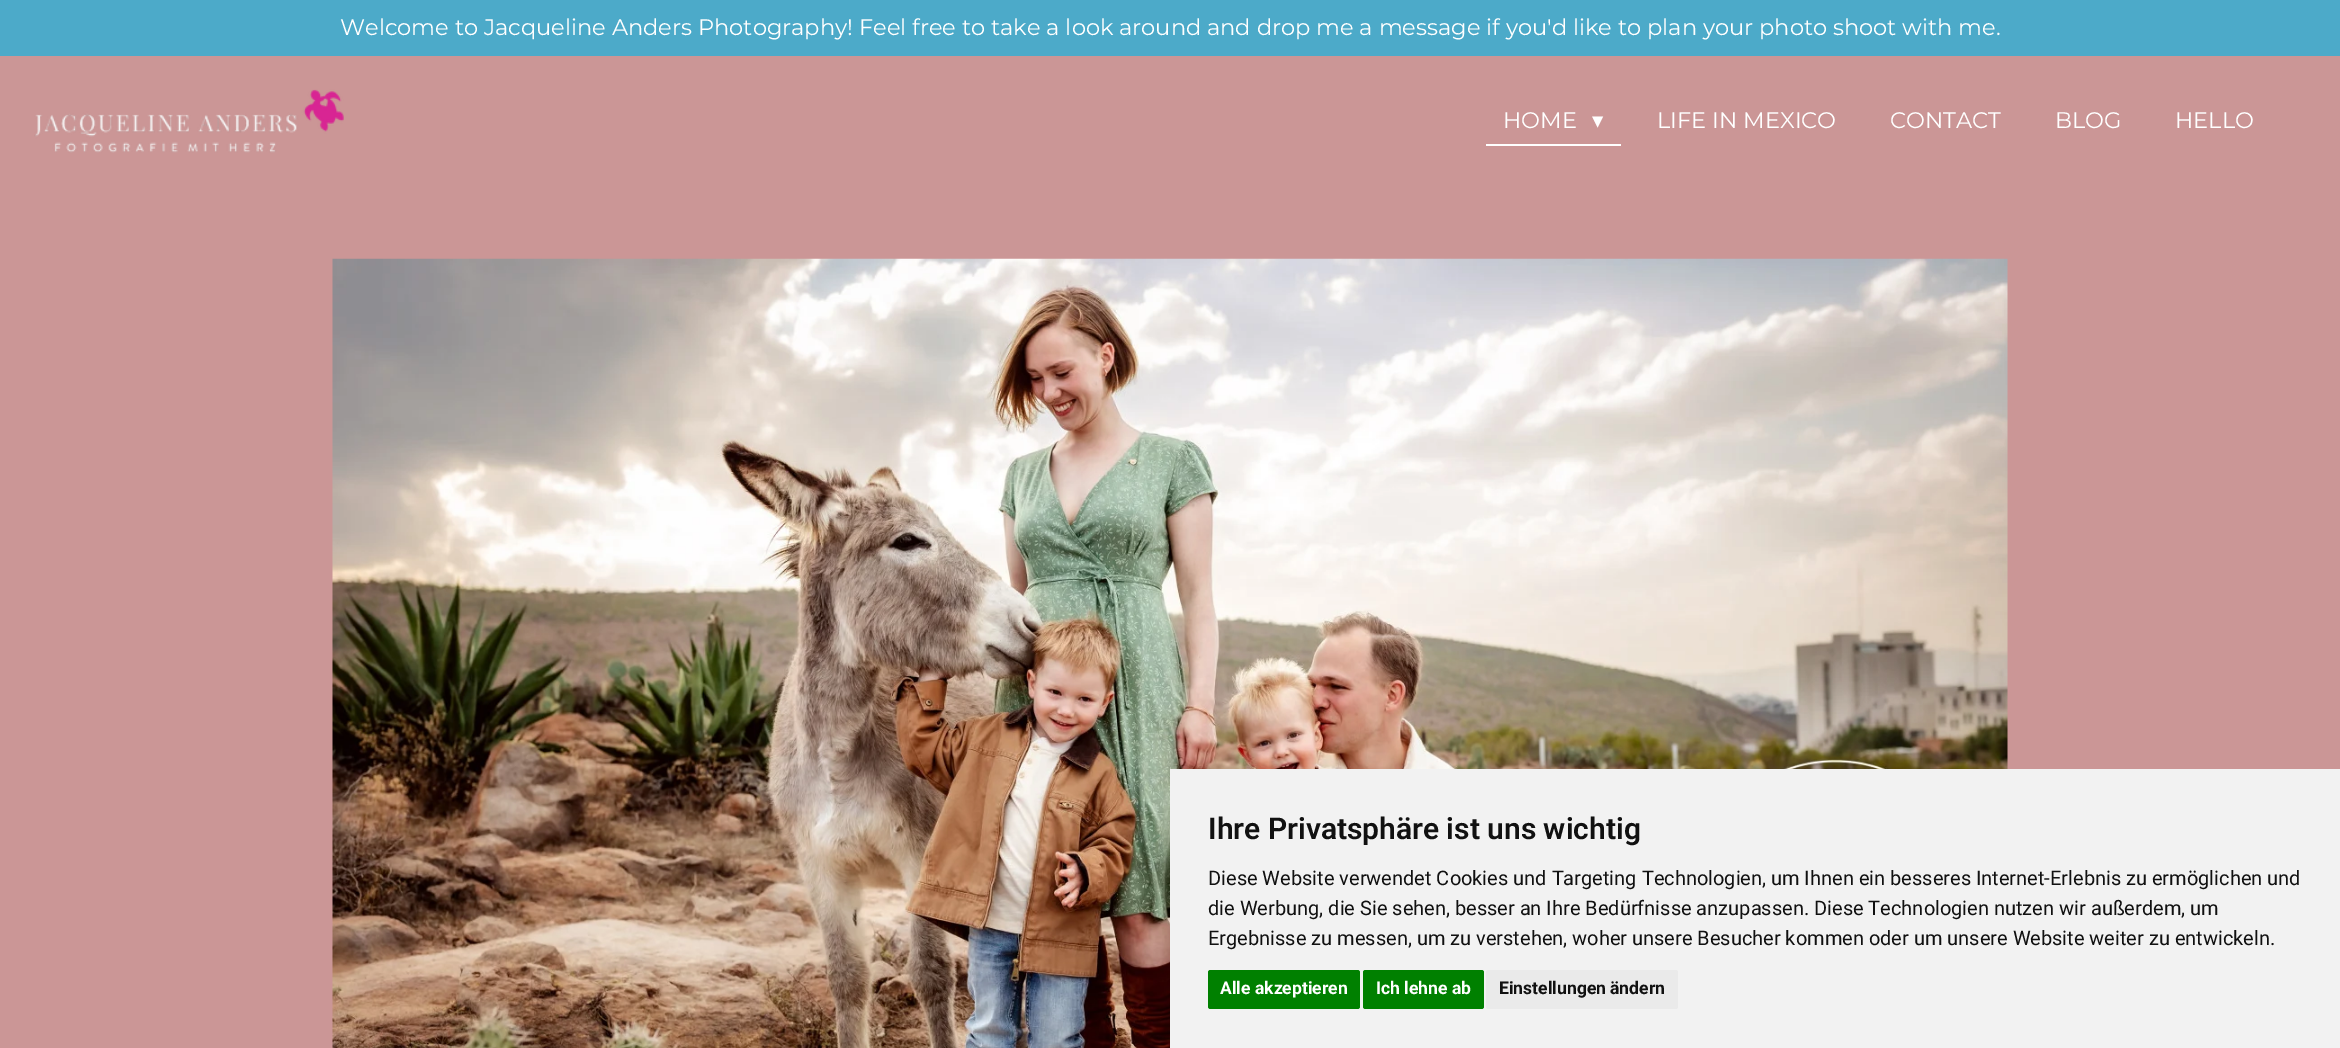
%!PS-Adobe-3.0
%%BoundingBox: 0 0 2340 1048
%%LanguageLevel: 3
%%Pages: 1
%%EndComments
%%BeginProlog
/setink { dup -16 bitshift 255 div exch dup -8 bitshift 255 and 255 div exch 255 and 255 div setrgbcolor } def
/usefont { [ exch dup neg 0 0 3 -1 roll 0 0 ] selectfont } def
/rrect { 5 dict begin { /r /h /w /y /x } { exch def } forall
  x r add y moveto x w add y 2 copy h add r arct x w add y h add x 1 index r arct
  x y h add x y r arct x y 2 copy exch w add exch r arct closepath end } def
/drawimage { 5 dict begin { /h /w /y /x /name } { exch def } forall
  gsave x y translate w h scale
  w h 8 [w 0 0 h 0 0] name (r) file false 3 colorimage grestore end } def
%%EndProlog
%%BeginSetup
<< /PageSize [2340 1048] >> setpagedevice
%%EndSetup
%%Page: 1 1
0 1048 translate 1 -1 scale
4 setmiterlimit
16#CB9696 setink
0 0 2340 1048 rectfill
16#4CAAC9 setink
0 0 2340 56 rectfill
/Montserrat-Regular 22.5 usefont
16#FFFFFF setink
340 35 moveto (Welcome to Jacqueline Anders Photography! Feel free to take a look around and drop me a message if you'd like to plan your photo shoot with me.) show
(img1.raw) 34 89 310 64 drawimage
1486 100 moveto 1486 146 lineto 1621 146 lineto 1621 144 lineto 1486 144 lineto closepath fill
1503 128 moveto (HOME) show
/DejaVuSans-Regular 22.5 usefont
1592 128 moveto (▾) show
/Montserrat-Regular 22.5 usefont
[
    [(LIFE IN MEXICO) 1657 128]
    [(CONTACT) 1890 128]
    [(BLOG) 2055 128]
    [(HELLO) 2175 128]
] { aload pop moveto show } forall
(img2.raw) 332 258 1676 790 drawimage
16#F2F2F2 setink
1170 769 1170 279 rectfill
/Roboto-SemiBold 30 usefont
16#111111 setink
1208 839 moveto (Ihre Privatsphäre ist uns wichtig) show
/Roboto-Regular 20 usefont
[
    [(Diese Website verwendet Cookies und Targeting Technologien, um Ihnen ein besseres Internet-Erlebnis zu ermöglichen und) 1208 885]
    [(die Werbung, die Sie sehen, besser an Ihre Bedürfnisse anzupassen. Diese Technologien nutzen wir außerdem, um) 1208 915]
    [(Ergebnisse zu messen, um zu verstehen, woher unsere Besucher kommen oder um unsere Website weiter zu entwickeln.) 1208 945]
] { aload pop moveto show } forall
16#008000 setink
1208 970 152 39 2.5 rrect fill
/Roboto-Bold 17.5 usefont
16#FFFFFF setink
1220 994 moveto (Alle akzeptieren) show
16#008000 setink
1363 970 121 39 2.5 rrect fill
16#FFFFFF setink
1376 994 moveto (Ich lehne ab) show
16#EAEAEA setink
1486 970 192 39 2.5 rrect fill
16#111111 setink
1499 994 moveto (Einstellungen ändern) show
showpage
%%EOF
